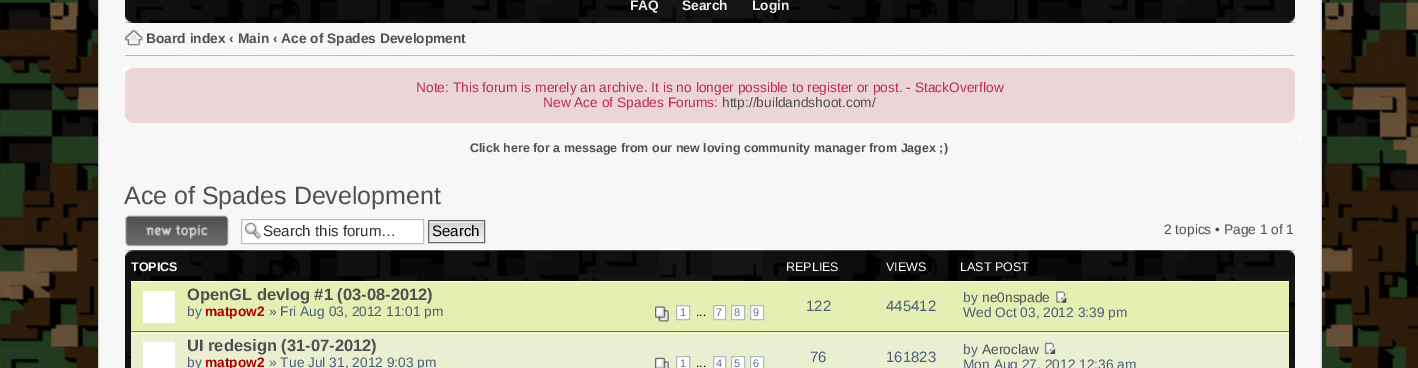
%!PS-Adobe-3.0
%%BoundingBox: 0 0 1418 368
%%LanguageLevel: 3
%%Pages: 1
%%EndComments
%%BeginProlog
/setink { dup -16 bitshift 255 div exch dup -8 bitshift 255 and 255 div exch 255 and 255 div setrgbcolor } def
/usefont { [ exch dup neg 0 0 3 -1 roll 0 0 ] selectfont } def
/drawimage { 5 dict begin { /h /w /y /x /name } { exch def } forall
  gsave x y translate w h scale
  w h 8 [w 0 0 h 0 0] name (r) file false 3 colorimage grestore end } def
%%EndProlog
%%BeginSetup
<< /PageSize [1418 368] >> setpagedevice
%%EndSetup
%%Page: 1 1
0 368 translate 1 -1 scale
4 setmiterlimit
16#FFFFFF setink
0 0 1418 368 rectfill
(img1.raw) 0 0 1418 368 drawimage
[
    [1321 0 1 368 16#D4D4D4]
    [98 0 1 368 16#D4D4D4]
    [100 0 1220 368 16#F7F7F7]
    [1320 0 1 368 16#EFEFEF]
    [99 0 1 368 16#EFEFEF]
] { aload pop setink rectfill } forall
(img2.raw) 125 0 1170 56 drawimage
(img3.raw) 136 0 1158 23 drawimage
/LiberationSans-Bold 13.75 usefont
16#EEEEEE setink
[
    [(FAQ) 630 10]
    [(Search) 682 10]
    [(Login) 752 10]
] { aload pop moveto show } forall
(img4.raw) 125 16 8 7 drawimage
(img5.raw) 1288 16 7 7 drawimage
16#F7F7F7 setink
125 23 1170 32 rectfill
(img6.raw) 125 30 18 16 drawimage
16#4F4F4F setink
146 43 moveto (Board index ‹ Main ‹ Ace of Spades Development) show
16#ECD5D8 setink
125 68 1170 55 rectfill
(img7.raw) 125 68 8 6 drawimage
(img8.raw) 1289 68 6 6 drawimage
/LiberationSans-Regular 13.75 usefont
16#BC2A4D setink
416 92 moveto (Note: This forum is merely an archive. It is no longer possible to register or post. - StackOverflow) show
543 107 moveto (New Ace of Spades Forums:) show
16#4F4F4F setink
722 107 moveto (http://buildandshoot.com/) show
(img9.raw) 125 116 7 7 drawimage
(img10.raw) 1289 116 6 7 drawimage
(img11.raw) 119 135 5 5 drawimage
(img12.raw) 1297 135 4 5 drawimage
/LiberationSans-Bold 12.5 usefont
470 152 moveto (Click here for a message from our new loving community manager from Jagex ;\)) show
(img13.raw) 119 157 4 5 drawimage
(img14.raw) 1297 157 4 5 drawimage
/LiberationSans-Regular 25 usefont
124 204 moveto (Ace of Spades Development) show
(img15.raw) 125 215 104 32 drawimage
16#FFFFFF setink
242 220 181 23 rectfill
(img16.raw) 244 222 18 17 drawimage
16#BFBFBF setink
241.5 219.5 182 24 rectstroke
/LiberationSans-Regular 15.1 usefont
16#333333 setink
263 236 moveto (Search this forum…) show
16#FAFAFA setink
429 221 55 1 rectfill
(img17.raw) 427 222 57 21 drawimage
16#666666 setink
428.5 220.5 56 22 rectstroke
16#000000 setink
432 236 moveto (Search) show
/LiberationSans-Regular 13.75 usefont
16#4F4F4F setink
1164 234 moveto (2 topics • Page 1 of 1) show
(img18.raw) 125 250 1170 118 drawimage
(img19.raw) 125 250 8 7 drawimage
(img20.raw) 1288 250 7 7 drawimage
/LiberationSans-Bold 12.5 usefont
16#FFFFFF setink
131 271 moveto (TOPICS) show
/LiberationSans-Regular 12.5 usefont
[
    [(REPLIES) 786 271]
    [(VIEWS) 886 271]
    [(LAST POST) 960 271]
] { aload pop moveto show } forall
[
    [131 282 1158 51 16#E5EFB3]
    [131 281 1158 1 16#FFFFFF]
    [131 331 1158 1 16#6F6F6F]
    [143 291 32 32 16#FFFFFF]
] { aload pop setink rectfill } forall
/LiberationSans-Bold 16.5 usefont
16#4F4F4F setink
187 300 moveto (OpenGL devlog #1 \(03-08-2012\)) show
/LiberationSans-Regular 13.75 usefont
16#4C5D77 setink
187 316 moveto (by) show
/LiberationSans-Bold 13.75 usefont
16#AA0000 setink
205 316 moveto (matpow2) show
/LiberationSans-Regular 13.75 usefont
16#4C5D77 setink
269 316 moveto (» Fri Aug 03, 2012 11:01 pm) show
(img21.raw) 655 306 14 16 drawimage
16#FFFFFF setink
676.5 305.5 moveto 689.5 305.5 lineto 689.5 319.5 lineto 676.5 319.5 lineto closepath gsave fill grestore
16#B4BAC0 setink
stroke
/LiberationSans-Regular 11 usefont
16#5C758C setink
680 316 moveto (1) show
/LiberationSans-Regular 12 usefont
16#000000 setink
696 316 moveto (...) show
16#FFFFFF setink
713.5 305.5 moveto 725.5 305.5 lineto 725.5 319.5 lineto 713.5 319.5 lineto closepath gsave fill grestore
16#B4BAC0 setink
stroke
/LiberationSans-Regular 11 usefont
16#5C758C setink
716 316 moveto (7) show
16#FFFFFF setink
731.5 305.5 moveto 744.5 305.5 lineto 744.5 319.5 lineto 731.5 319.5 lineto closepath gsave fill grestore
16#B4BAC0 setink
stroke
16#5C758C setink
734 316 moveto (8) show
16#FFFFFF setink
750.5 305.5 moveto 763.5 305.5 lineto 763.5 319.5 lineto 750.5 319.5 lineto closepath gsave fill grestore
16#B4BAC0 setink
stroke
16#5C758C setink
753 316 moveto (9) show
/LiberationSans-Regular 15 usefont
16#4C5D77 setink
806 311 moveto (122) show
886 311 moveto (445412) show
/LiberationSans-Regular 13.75 usefont
963 302 moveto (by) show
16#4F4F4F setink
982 302 moveto (ne0nspade) show
(img22.raw) 1056 291 11 12 drawimage
16#4C5D77 setink
963 317 moveto (Wed Oct 03, 2012 3:39 pm) show
[
    [131 334 1158 34 16#EAEFD1]
    [131 333 1158 1 16#FFFFFF]
    [143 342 32 26 16#FFFFFF]
] { aload pop setink rectfill } forall
/LiberationSans-Bold 16.5 usefont
16#4F4F4F setink
187 351 moveto (UI redesign \(31-07-2012\)) show
/LiberationSans-Regular 13.75 usefont
16#4C5D77 setink
187 367 moveto (by) show
/LiberationSans-Bold 13.75 usefont
16#AA0000 setink
205 367 moveto (matpow2) show
/LiberationSans-Regular 13.75 usefont
16#4C5D77 setink
269 367 moveto (» Tue Jul 31, 2012 9:03 pm) show
(img23.raw) 655 357 14 11 drawimage
16#FFFFFF setink
676.5 356.5 moveto 689.5 356.5 lineto 689.5 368.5 lineto 676.5 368.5 lineto closepath gsave fill grestore
16#B4BAC0 setink
stroke
/LiberationSans-Regular 11 usefont
16#5C758C setink
680 367 moveto (1) show
/LiberationSans-Regular 12 usefont
16#000000 setink
696 367 moveto (...) show
16#FFFFFF setink
713.5 356.5 moveto 725.5 356.5 lineto 725.5 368.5 lineto 713.5 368.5 lineto closepath gsave fill grestore
16#B4BAC0 setink
stroke
/LiberationSans-Regular 11 usefont
16#5C758C setink
716 367 moveto (4) show
16#FFFFFF setink
731.5 356.5 moveto 744.5 356.5 lineto 744.5 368.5 lineto 731.5 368.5 lineto closepath gsave fill grestore
16#B4BAC0 setink
stroke
16#5C758C setink
734 367 moveto (5) show
16#FFFFFF setink
750.5 356.5 moveto 763.5 356.5 lineto 763.5 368.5 lineto 750.5 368.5 lineto closepath gsave fill grestore
16#B4BAC0 setink
stroke
16#5C758C setink
753 367 moveto (6) show
/LiberationSans-Regular 15 usefont
16#4C5D77 setink
810 362 moveto (76) show
886 362 moveto (161823) show
/LiberationSans-Regular 13.75 usefont
963 354 moveto (by) show
16#4F4F4F setink
982 354 moveto (Aeroclaw) show
(img24.raw) 1044 342 12 12 drawimage
16#4C5D77 setink
963 369 moveto (Mon Aug 27, 2012 12:36 am) show
showpage
%%EOF
